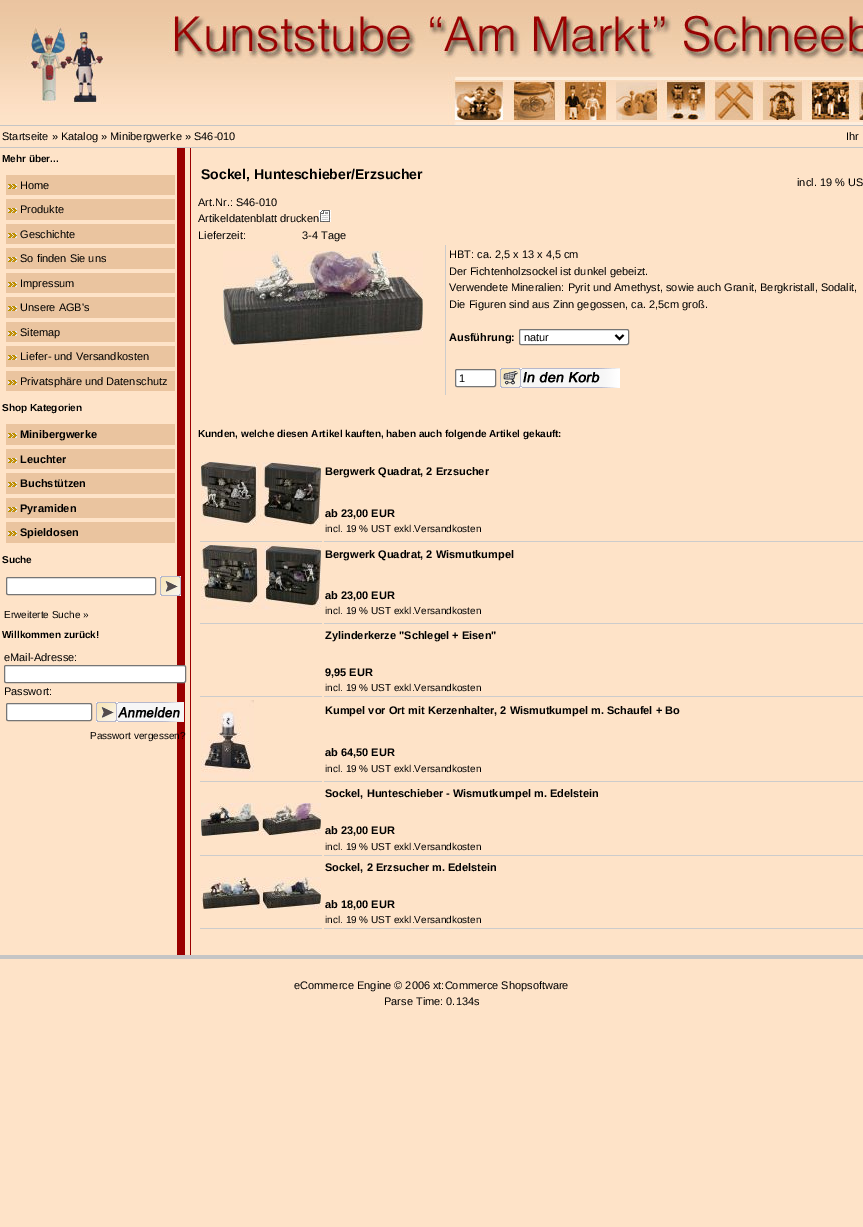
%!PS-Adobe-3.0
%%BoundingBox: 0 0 863 1227
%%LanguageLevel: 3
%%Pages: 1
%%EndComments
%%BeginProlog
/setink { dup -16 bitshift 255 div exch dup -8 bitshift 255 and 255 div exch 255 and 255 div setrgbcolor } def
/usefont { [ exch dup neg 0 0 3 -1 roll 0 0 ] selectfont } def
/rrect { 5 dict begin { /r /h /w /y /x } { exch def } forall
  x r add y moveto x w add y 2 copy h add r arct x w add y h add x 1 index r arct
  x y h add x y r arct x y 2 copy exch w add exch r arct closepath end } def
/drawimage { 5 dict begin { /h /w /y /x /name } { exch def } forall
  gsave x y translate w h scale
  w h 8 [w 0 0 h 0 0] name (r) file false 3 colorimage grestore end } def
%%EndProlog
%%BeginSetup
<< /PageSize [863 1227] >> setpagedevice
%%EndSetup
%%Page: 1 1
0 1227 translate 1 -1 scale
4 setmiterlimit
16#FEE3C8 setink
0 0 863 1227 rectfill
(img1.raw) 0 0 863 125 drawimage
16#C5C5C5 setink
0 125 863 1 rectfill
0 147 863 1 rectfill
/LiberationSans-Regular 11 usefont
16#000000 setink
2 140 moveto (Startseite » Katalog » Minibergwerke » S46-010) show
846 140 moveto (Ihr) show
16#9A0000 setink
177 148 8 807 rectfill
190 148 1 807 rectfill
/LiberationSans-Bold 10 usefont
16#000000 setink
2 162 moveto (Mehr über...) show
16#EAC49F setink
6 175 169 20 rectfill
(img2.raw) 8 184 9 5 drawimage
/LiberationSans-Regular 11 usefont
16#000000 setink
20 189 moveto (Home) show
16#EAC49F setink
6 199 169 21 rectfill
(img2.raw) 8 208 9 5 drawimage
16#000000 setink
20 213 moveto (Produkte) show
16#EAC49F setink
6 224 169 20 rectfill
(img2.raw) 8 233 9 5 drawimage
16#000000 setink
20 238 moveto (Geschichte) show
16#EAC49F setink
6 248 169 21 rectfill
(img2.raw) 8 257 9 5 drawimage
16#000000 setink
20 262 moveto (So finden Sie uns) show
16#EAC49F setink
6 273 169 20 rectfill
(img2.raw) 8 282 9 5 drawimage
16#000000 setink
20 287 moveto (Impressum) show
16#EAC49F setink
6 297 169 21 rectfill
(img2.raw) 8 306 9 5 drawimage
16#000000 setink
20 311 moveto (Unsere AGB's) show
16#EAC49F setink
6 322 169 20 rectfill
(img2.raw) 8 331 9 5 drawimage
16#000000 setink
20 336 moveto (Sitemap) show
16#EAC49F setink
6 346 169 21 rectfill
(img2.raw) 8 355 9 5 drawimage
16#000000 setink
20 360 moveto (Liefer- und Versandkosten) show
16#EAC49F setink
6 371 169 20 rectfill
(img2.raw) 8 380 9 5 drawimage
16#000000 setink
20 385 moveto (Privatsphäre und Datenschutz) show
/LiberationSans-Bold 10 usefont
2 411 moveto (Shop Kategorien) show
16#EAC49F setink
6 424 169 21 rectfill
(img2.raw) 8 433 9 5 drawimage
/LiberationSans-Bold 11 usefont
16#000000 setink
20 438 moveto (Minibergwerke) show
16#EAC49F setink
6 449 169 20 rectfill
(img2.raw) 8 458 9 5 drawimage
16#000000 setink
20 463 moveto (Leuchter) show
16#EAC49F setink
6 473 169 21 rectfill
(img2.raw) 8 482 9 5 drawimage
16#000000 setink
20 487 moveto (Buchstützen) show
16#EAC49F setink
6 498 169 20 rectfill
(img2.raw) 8 507 9 5 drawimage
16#000000 setink
20 512 moveto (Pyramiden) show
16#EAC49F setink
6 522 169 21 rectfill
(img2.raw) 8 531 9 5 drawimage
16#000000 setink
20 536 moveto (Spieldosen) show
/LiberationSans-Bold 10 usefont
2 563 moveto (Suche) show
16#FFFFFF setink
6.5 577.5 149 17 1.5 rrect gsave fill grestore
16#767676 setink
stroke
(img3.raw) 160 576 21 20 drawimage
/LiberationSans-Regular 10 usefont
16#000000 setink
4 618 moveto (Erweiterte Suche ») show
/LiberationSans-Bold 10 usefont
2 638 moveto (Willkommen zurück!) show
/LiberationSans-Regular 11 usefont
4 661 moveto (eMail-Adresse:) show
16#FFFFFF setink
4.5 665.5 181 17 1.5 rrect gsave fill grestore
16#767676 setink
stroke
16#000000 setink
4 695 moveto (Passwort:) show
16#FFFFFF setink
6.5 703.5 85 17 1.5 rrect gsave fill grestore
16#767676 setink
stroke
(img4.raw) 96 702 88 20 drawimage
/LiberationSans-Regular 10 usefont
16#000000 setink
90 739 moveto (Passwort vergessen?) show
/LiberationSans-Bold 14 usefont
201 179 moveto (Sockel, Hunteschieber/Erzsucher) show
/LiberationSans-Regular 11 usefont
[
    [(incl. 19 % US) 797 186]
    [(Art.Nr.: S46-010) 198 206]
    [(Artikeldatenblatt drucken) 198 222]
] { aload pop moveto show } forall
(img5.raw) 319 210 12 12 drawimage
198 239 moveto (Lieferzeit:) show
302 239 moveto (3-4 Tage) show
16#CCCCCC setink
445 245 1 150 rectfill
(img6.raw) 223 251 200 94 drawimage
16#000000 setink
[
    [(HBT: ca. 2,5 x 13 x 4,5 cm) 449 258]
    [(Der Fichtenholzsockel ist dunkel gebeizt.) 449 275]
    [(Verwendete Mineralien: Pyrit und Amethyst, sowie auch Granit, Bergkristall, Sodalit,) 449 291]
    [(Die Figuren sind aus Zinn gegossen, ca. 2,5cm groß.) 449 308]
] { aload pop moveto show } forall
/LiberationSans-Bold 11 usefont
449 341 moveto (Ausführung:) show
16#FFFFFF setink
519.5 329.5 109 15 1.5 rrect gsave fill grestore
16#767676 setink
stroke
16#000000 setink
2 setlinewidth
615.5 335 moveto 619.5 339 lineto 623.5 335 lineto stroke
/LiberationSans-Regular 11 usefont
524 341 moveto (natur) show
16#FFFFFF setink
455.5 369.5 40 17 1.5 rrect gsave fill grestore
16#767676 setink
1 setlinewidth
stroke
16#000000 setink
459 382 moveto (1) show
(img7.raw) 500 368 120 20 drawimage
/LiberationSans-Bold 10 usefont
198 437 moveto (Kunden, welche diesen Artikel kauften, haben auch folgende Artikel gekauft:) show
16#CCCCCC setink
200 541 122 1 rectfill
(img8.raw) 201 462 120 64 drawimage
/LiberationSans-Bold 11 usefont
16#000000 setink
325 475 moveto (Bergwerk Quadrat, 2 Erzsucher) show
16#CCCCCC setink
324 541 539 1 rectfill
16#000000 setink
325 517 moveto (ab 23,00 EUR) show
/LiberationSans-Regular 10 usefont
325 532 moveto (incl. 19 % UST exkl.Versandkosten) show
16#CCCCCC setink
200 623 122 1 rectfill
(img9.raw) 201 545 120 65 drawimage
/LiberationSans-Bold 11 usefont
16#000000 setink
325 558 moveto (Bergwerk Quadrat, 2 Wismutkumpel) show
16#CCCCCC setink
324 623 539 1 rectfill
16#000000 setink
325 599 moveto (ab 23,00 EUR) show
/LiberationSans-Regular 10 usefont
325 614 moveto (incl. 19 % UST exkl.Versandkosten) show
/LiberationSans-Bold 11 usefont
325 639 moveto (Zylinderkerze "Schlegel + Eisen") show
16#CCCCCC setink
200 696 122 1 rectfill
324 696 539 1 rectfill
16#000000 setink
325 676 moveto (9,95 EUR) show
/LiberationSans-Regular 10 usefont
325 691 moveto (incl. 19 % UST exkl.Versandkosten) show
16#CCCCCC setink
200 781 122 1 rectfill
(img10.raw) 201 700 53 80 drawimage
/LiberationSans-Bold 11 usefont
16#000000 setink
325 714 moveto (Kumpel vor Ort mit Kerzenhalter, 2 Wismutkumpel m. Schaufel + Bo) show
16#CCCCCC setink
324 781 539 1 rectfill
16#000000 setink
325 756 moveto (ab 64,50 EUR) show
/LiberationSans-Regular 10 usefont
325 772 moveto (incl. 19 % UST exkl.Versandkosten) show
/LiberationSans-Bold 11 usefont
325 797 moveto (Sockel, Hunteschieber - Wismutkumpel m. Edelstein) show
16#CCCCCC setink
200 855 122 1 rectfill
(img11.raw) 201 803 120 33 drawimage
324 855 539 1 rectfill
16#000000 setink
325 834 moveto (ab 23,00 EUR) show
/LiberationSans-Regular 10 usefont
325 850 moveto (incl. 19 % UST exkl.Versandkosten) show
/LiberationSans-Bold 11 usefont
325 871 moveto (Sockel, 2 Erzsucher m. Edelstein) show
16#CCCCCC setink
200 928 122 1 rectfill
(img12.raw) 201 877 120 32 drawimage
324 928 539 1 rectfill
16#000000 setink
325 908 moveto (ab 18,00 EUR) show
/LiberationSans-Regular 10 usefont
325 923 moveto (incl. 19 % UST exkl.Versandkosten) show
16#C5C5C5 setink
0 955 863 4 rectfill
/LiberationSans-Regular 11 usefont
16#000000 setink
294 989 moveto (eCommerce Engine © 2006 xt:Commerce Shopsoftware) show
384 1005 moveto (Parse Time: 0.134s) show
showpage
%%EOF
